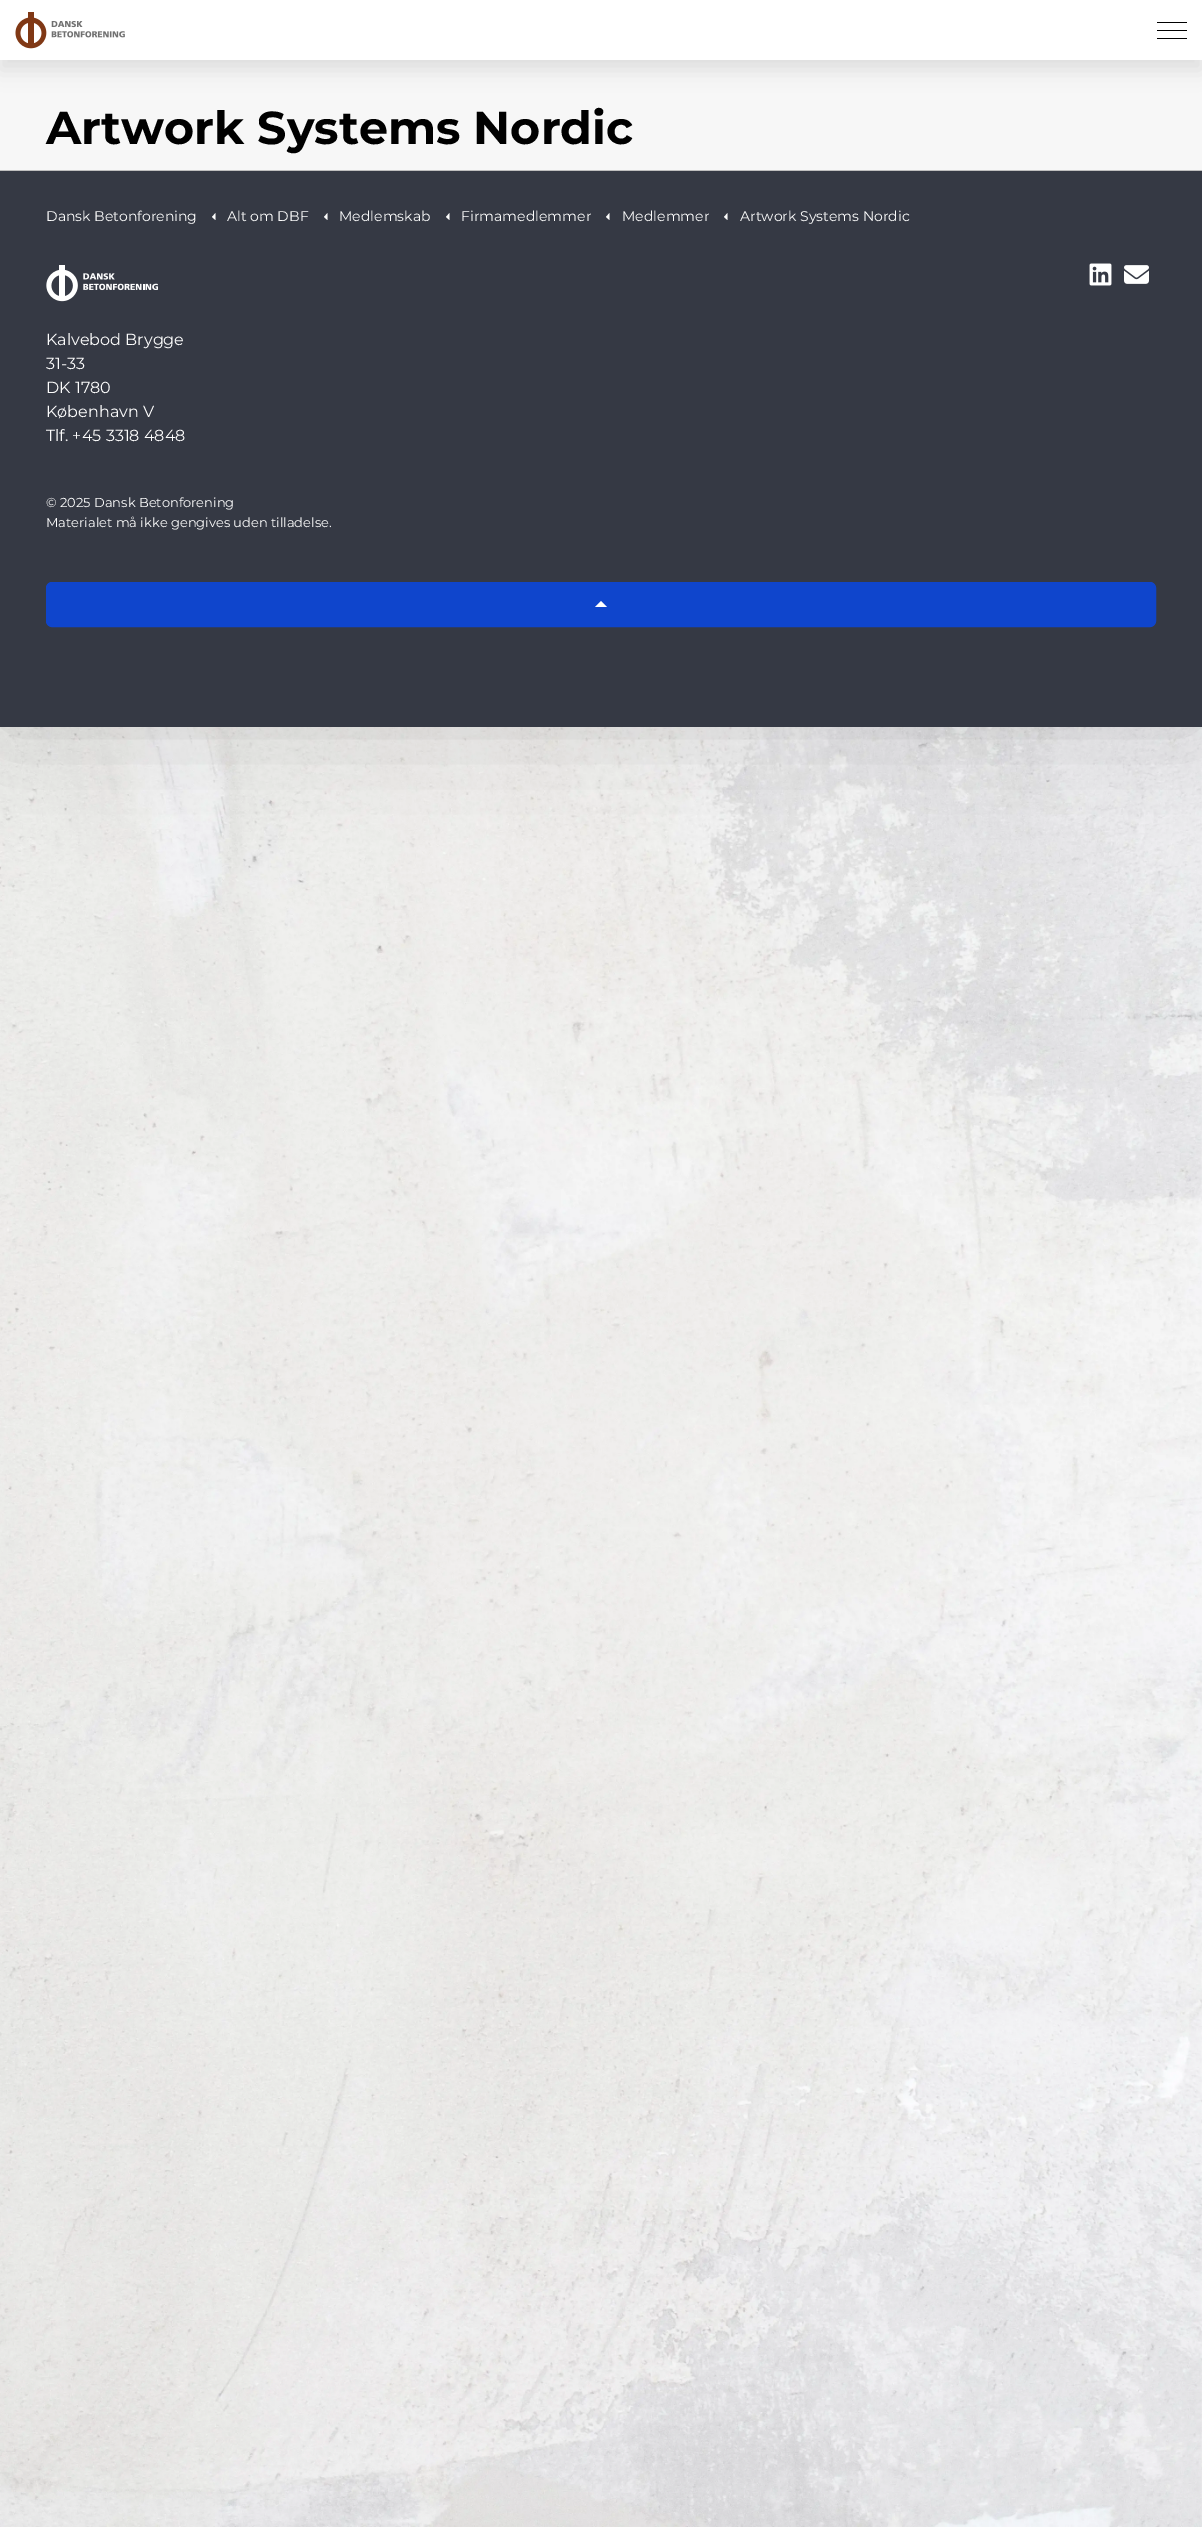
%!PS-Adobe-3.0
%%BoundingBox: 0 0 1202 2527
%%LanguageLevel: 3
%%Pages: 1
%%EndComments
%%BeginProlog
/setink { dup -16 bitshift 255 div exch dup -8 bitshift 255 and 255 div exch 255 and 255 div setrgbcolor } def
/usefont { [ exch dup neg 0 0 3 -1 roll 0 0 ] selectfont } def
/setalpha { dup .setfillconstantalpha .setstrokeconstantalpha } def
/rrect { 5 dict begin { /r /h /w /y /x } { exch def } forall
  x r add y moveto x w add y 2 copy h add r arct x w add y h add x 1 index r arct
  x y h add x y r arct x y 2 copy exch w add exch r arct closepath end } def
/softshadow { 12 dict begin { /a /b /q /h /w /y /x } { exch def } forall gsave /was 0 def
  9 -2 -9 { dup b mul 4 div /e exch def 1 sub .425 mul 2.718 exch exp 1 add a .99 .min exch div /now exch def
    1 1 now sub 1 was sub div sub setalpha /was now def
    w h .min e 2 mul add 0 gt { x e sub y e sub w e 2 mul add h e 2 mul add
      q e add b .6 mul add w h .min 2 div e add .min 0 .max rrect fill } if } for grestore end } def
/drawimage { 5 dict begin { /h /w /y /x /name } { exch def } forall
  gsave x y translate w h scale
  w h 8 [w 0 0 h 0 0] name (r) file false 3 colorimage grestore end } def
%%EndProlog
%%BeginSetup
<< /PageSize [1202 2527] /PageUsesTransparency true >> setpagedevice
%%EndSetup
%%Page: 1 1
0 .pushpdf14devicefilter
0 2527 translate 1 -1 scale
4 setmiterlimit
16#FFFFFF setink
0 0 1202 2527 rectfill
(img1.raw) 0 727 1202 1800 drawimage
16#000000 setink
0 0 1202 727 0 50 0.15 softshadow
16#F7F7F7 setink
0 60 1202 110 rectfill
16#000000 setink
0 10 1202 60 0 10 0.1 softshadow
16#FFFFFF setink
0 0 1202 60 rectfill
(img2.raw) 15 12 110 37 drawimage
[
    [1157 30 30 1 16#000000]
    [1157 22 30 1 16#000000]
    [1157 38 30 1 16#000000]
] { aload pop setink rectfill } forall
/Montserrat-Bold 46 usefont
46 144 moveto (Artwork Systems Nordic) show
16#353944 setink
0 171 1202 556 rectfill
16#BFBFBF setink
0 170 1202 1 rectfill
/Montserrat-Regular 14 usefont
16#FCFCFC setink
46 221 moveto (Dansk Betonforening) show
215.5 213 moveto 215.5 220 lineto 212 217 lineto closepath fill
227 221 moveto (Alt om DBF) show
327.5 213 moveto 327.5 220 lineto 324 217 lineto closepath fill
339 221 moveto (Medlemskab) show
449.5 213 moveto 449.5 220 lineto 446 217 lineto closepath fill
461 221 moveto (Firmamedlemmer) show
609.5 213 moveto 609.5 220 lineto 606 217 lineto closepath fill
622 221 moveto (Medlemmer) show
727.5 213 moveto 727.5 220 lineto 724 217 lineto closepath fill
740 221 moveto (Artwork Systems Nordic) show
(img3.raw) 1089 263 23 23 drawimage
(img4.raw) 1124 265 25 19 drawimage
(img5.raw) 46 265 112 37 drawimage
/Montserrat-Regular 16 usefont
[
    [(Kalvebod Brygge) 46 345]
    [(31-33) 46 369]
    [(DK 1780) 46 393]
    [(København V) 46 417]
    [(Tlf. +45 3318 4848) 46 441]
] { aload pop moveto show } forall
/Montserrat-Regular 13 usefont
46 507 moveto (© 2025 Dansk Betonforening) show
46 527 moveto (Materialet må ikke gengives uden tilladelse.) show
16#0F45CC setink
46.5 582.5 1109 44 5.5 rrect gsave fill grestore
stroke
16#FFFFFF setink
595 607 moveto 601 601 lineto 607 607 lineto closepath fill
.poppdf14devicefilter showpage
%%EOF
